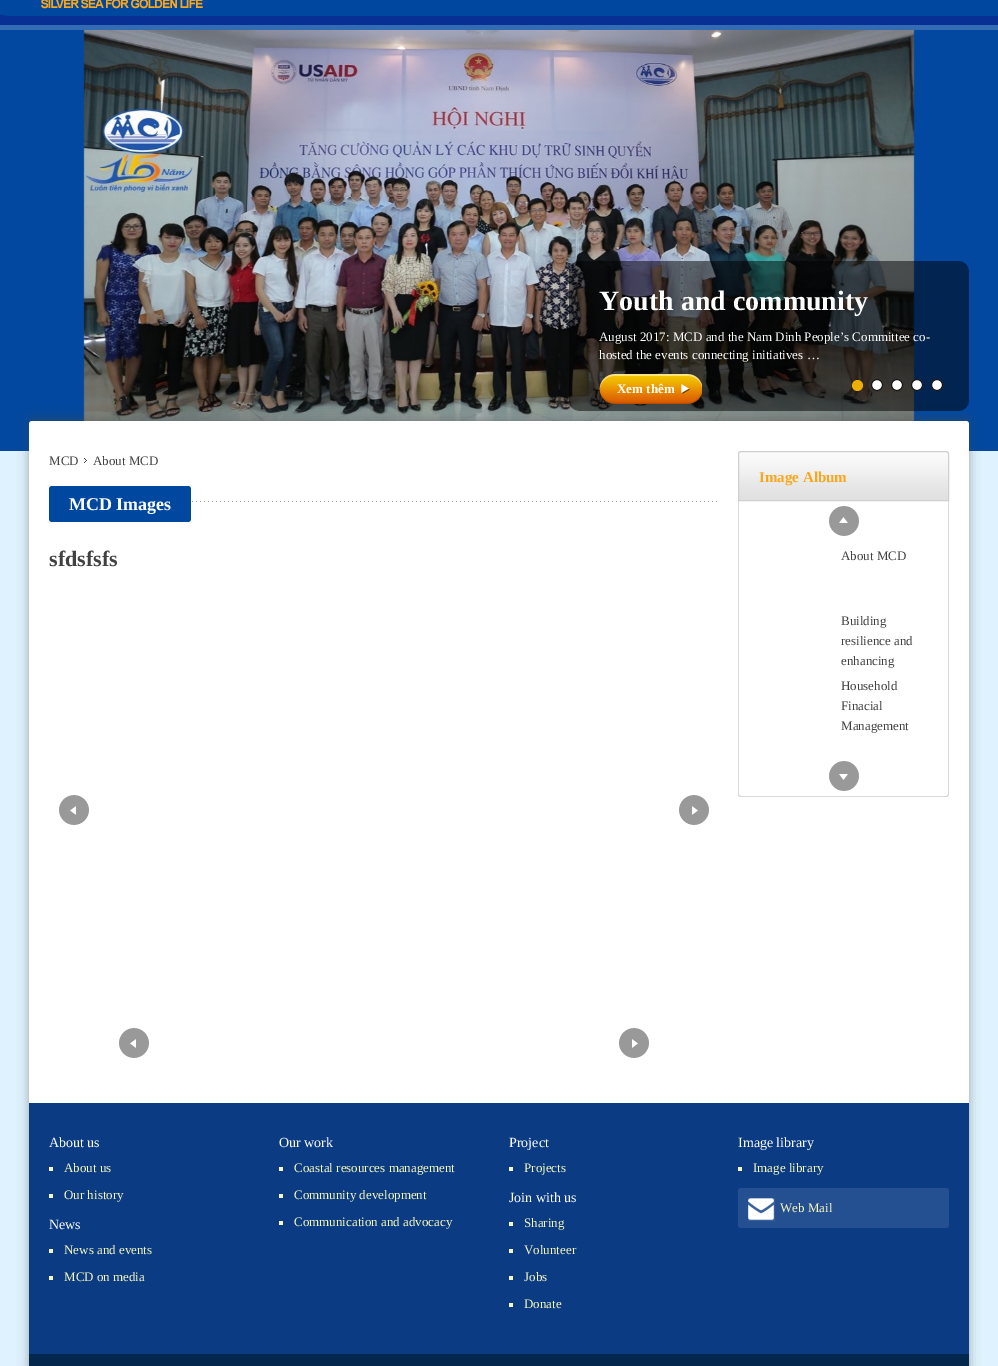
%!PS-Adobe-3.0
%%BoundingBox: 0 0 998 1366
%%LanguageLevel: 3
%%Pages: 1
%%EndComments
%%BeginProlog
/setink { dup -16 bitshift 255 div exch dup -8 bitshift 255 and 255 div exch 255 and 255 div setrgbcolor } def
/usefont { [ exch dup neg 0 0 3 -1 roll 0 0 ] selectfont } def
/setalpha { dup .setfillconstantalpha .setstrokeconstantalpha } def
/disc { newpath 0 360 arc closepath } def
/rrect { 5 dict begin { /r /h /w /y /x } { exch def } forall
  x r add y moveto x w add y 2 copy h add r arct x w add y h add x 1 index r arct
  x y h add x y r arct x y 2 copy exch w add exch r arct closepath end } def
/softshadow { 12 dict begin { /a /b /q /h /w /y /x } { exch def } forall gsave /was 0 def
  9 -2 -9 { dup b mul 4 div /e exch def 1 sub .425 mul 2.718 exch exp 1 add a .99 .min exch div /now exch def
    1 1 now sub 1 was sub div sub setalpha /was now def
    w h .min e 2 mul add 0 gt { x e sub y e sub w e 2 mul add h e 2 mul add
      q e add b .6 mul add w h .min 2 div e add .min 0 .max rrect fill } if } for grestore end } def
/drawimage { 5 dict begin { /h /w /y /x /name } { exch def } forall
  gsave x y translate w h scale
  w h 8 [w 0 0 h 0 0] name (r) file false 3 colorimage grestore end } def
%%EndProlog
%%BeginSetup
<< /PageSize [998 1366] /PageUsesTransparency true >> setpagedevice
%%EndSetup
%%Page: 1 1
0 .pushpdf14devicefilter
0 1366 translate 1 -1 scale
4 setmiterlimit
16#DEF3FF setink
0 0 998 1366 rectfill
[
    [0 16 998 9 16#083094]
    [0 0 998 16 16#00479F]
    [0 25 998 5 16#336CB2]
] { aload pop setink rectfill } forall
(img1.raw) 0 14 7 2 drawimage
(img2.raw) 41 0 162 9 drawimage
16#0248A0 setink
0 30 998 421 rectfill
(img3.raw) 83 30 832 391 drawimage
16#444444 setink
29 418 940 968 3 5.5 0.43 softshadow
(img4.raw) 569 261 400 150 drawimage
/LiberationSerif-Bold 28 usefont
16#FFFFFF setink
599 310 moveto (Youth and community) show
/LiberationSerif-Regular 13 usefont
599 341 moveto (August 2017: MCD and the Nam Dinh People’s Committee co-) show
599 359 moveto (hosted the events connecting initiatives …) show
(img5.raw) 599 374 103 30 drawimage
/LiberationSerif-Bold 13 usefont
617 393 moveto (Xem thêm) show
16#EFAF00 setink
857.5 385.5 5.5 disc fill
16#FFFFFF setink
877 385 5.5 disc gsave fill grestore
16#161615 setink
stroke
16#FFFFFF setink
897 385 5.5 disc gsave fill grestore
16#161615 setink
stroke
16#FFFFFF setink
917 385 5.5 disc gsave fill grestore
16#161615 setink
stroke
16#FFFFFF setink
937 385 5.5 disc gsave fill grestore
16#161615 setink
stroke
16#FFFFFF setink
32 421 moveto 966 421 lineto 967.5 421 969 422.5 969 424 curveto 969 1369 lineto 29 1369 lineto 29 424 lineto 29 422.5 30.5 421 32 421 curveto closepath fill
/LiberationSerif-Regular 13 usefont
16#414141 setink
49 465 moveto (MCD) show
(img6.raw) 84 458 3 5 drawimage
93 465 moveto (About MCD) show
(img7.raw) 191 501 526 1 drawimage
16#00479F setink
49 486 142 36 3 rrect fill
/LiberationSerif-Bold 18 usefont
16#FFFFFF setink
69 510 moveto (MCD Images) show
/LiberationSerif-Bold 22 usefont
16#414141 setink
49 566 moveto (sfdsfsfs) show
(img8.raw) 59 795 30 30 drawimage
(img9.raw) 679 795 30 30 drawimage
(img8.raw) 119 1028 30 30 drawimage
(img9.raw) 619 1028 30 30 drawimage
(img10.raw) 738 452 211 48 drawimage
16#D0D0D0 setink
741 451.5 moveto 946 451.5 lineto 947.5 451.5 948.5 452.5 948.5 454 curveto 948.5 500.5 lineto 738.5 500.5 lineto 738.5 454 lineto 738.5 452.5 739.5 451.5 741 451.5 curveto closepath stroke
/LiberationSerif-Bold 15 usefont
16#FAA61A setink
759 482 moveto (Image Album) show
16#D9D9D9 setink
738 501 moveto 949 501 lineto 949 794 lineto 949 796 948 797 946 797 curveto 741 797 lineto 739 797 738 796 738 794 curveto closepath 739 501 moveto 948 501 lineto 948 794 lineto 948 795 947 796 946 796 curveto 741 796 lineto 740 796 739 795 739 794 curveto closepath eofill
(img11.raw) 829 506 30 30 drawimage
/LiberationSerif-Regular 13 usefont
16#414141 setink
[
    [(About MCD) 841 560]
    [(Building) 841 625]
    [(resilience and) 841 645]
    [(enhancing) 841 665]
    [(Household) 841 690]
    [(Finacial) 841 710]
    [(Management) 841 730]
] { aload pop moveto show } forall
(img12.raw) 829 761 30 30 drawimage
16#0B3B83 setink
29 1103 940 251 rectfill
/LiberationSerif-Regular 14 usefont
16#FFFFFF setink
49 1147 moveto (About us) show
16#F6F7BD setink
49 1167 4 4 rectfill
/LiberationSerif-Regular 13 usefont
64 1172 moveto (About us) show
49 1194 4 4 rectfill
64 1199 moveto (Our history) show
/LiberationSerif-Regular 14 usefont
16#FFFFFF setink
49 1229 moveto (News) show
16#F6F7BD setink
49 1249 4 4 rectfill
/LiberationSerif-Regular 13 usefont
64 1254 moveto (News and events) show
49 1276 4 4 rectfill
64 1281 moveto (MCD on media) show
/LiberationSerif-Regular 14 usefont
16#FFFFFF setink
279 1147 moveto (Our work) show
16#F6F7BD setink
279 1167 4 4 rectfill
/LiberationSerif-Regular 13 usefont
294 1172 moveto (Coastal resources management) show
279 1194 4 4 rectfill
294 1199 moveto (Community development) show
279 1221 4 4 rectfill
294 1226 moveto (Communication and advocacy) show
/LiberationSerif-Regular 14 usefont
16#FFFFFF setink
509 1147 moveto (Project) show
16#F6F7BD setink
509 1167 4 4 rectfill
/LiberationSerif-Regular 13 usefont
524 1172 moveto (Projects) show
/LiberationSerif-Regular 14 usefont
16#FFFFFF setink
509 1202 moveto (Join with us) show
16#F6F7BD setink
509 1222 4 4 rectfill
/LiberationSerif-Regular 13 usefont
524 1227 moveto (Sharing) show
509 1249 4 4 rectfill
524 1254 moveto (Volunteer) show
509 1276 4 4 rectfill
524 1281 moveto (Jobs) show
509 1303 4 4 rectfill
524 1308 moveto (Donate) show
/LiberationSerif-Regular 14 usefont
16#FFFFFF setink
738 1147 moveto (Image library) show
16#F6F7BD setink
738 1167 4 4 rectfill
/LiberationSerif-Regular 13 usefont
753 1172 moveto (Image library) show
16#244F90 setink
738 1188 211 40 3 rrect fill
(img13.raw) 748 1198 27 23 drawimage
16#F6F7BD setink
780 1212 moveto (Web Mail) show
16#04274D setink
29 1354 940 12 rectfill
.poppdf14devicefilter showpage
%%EOF
